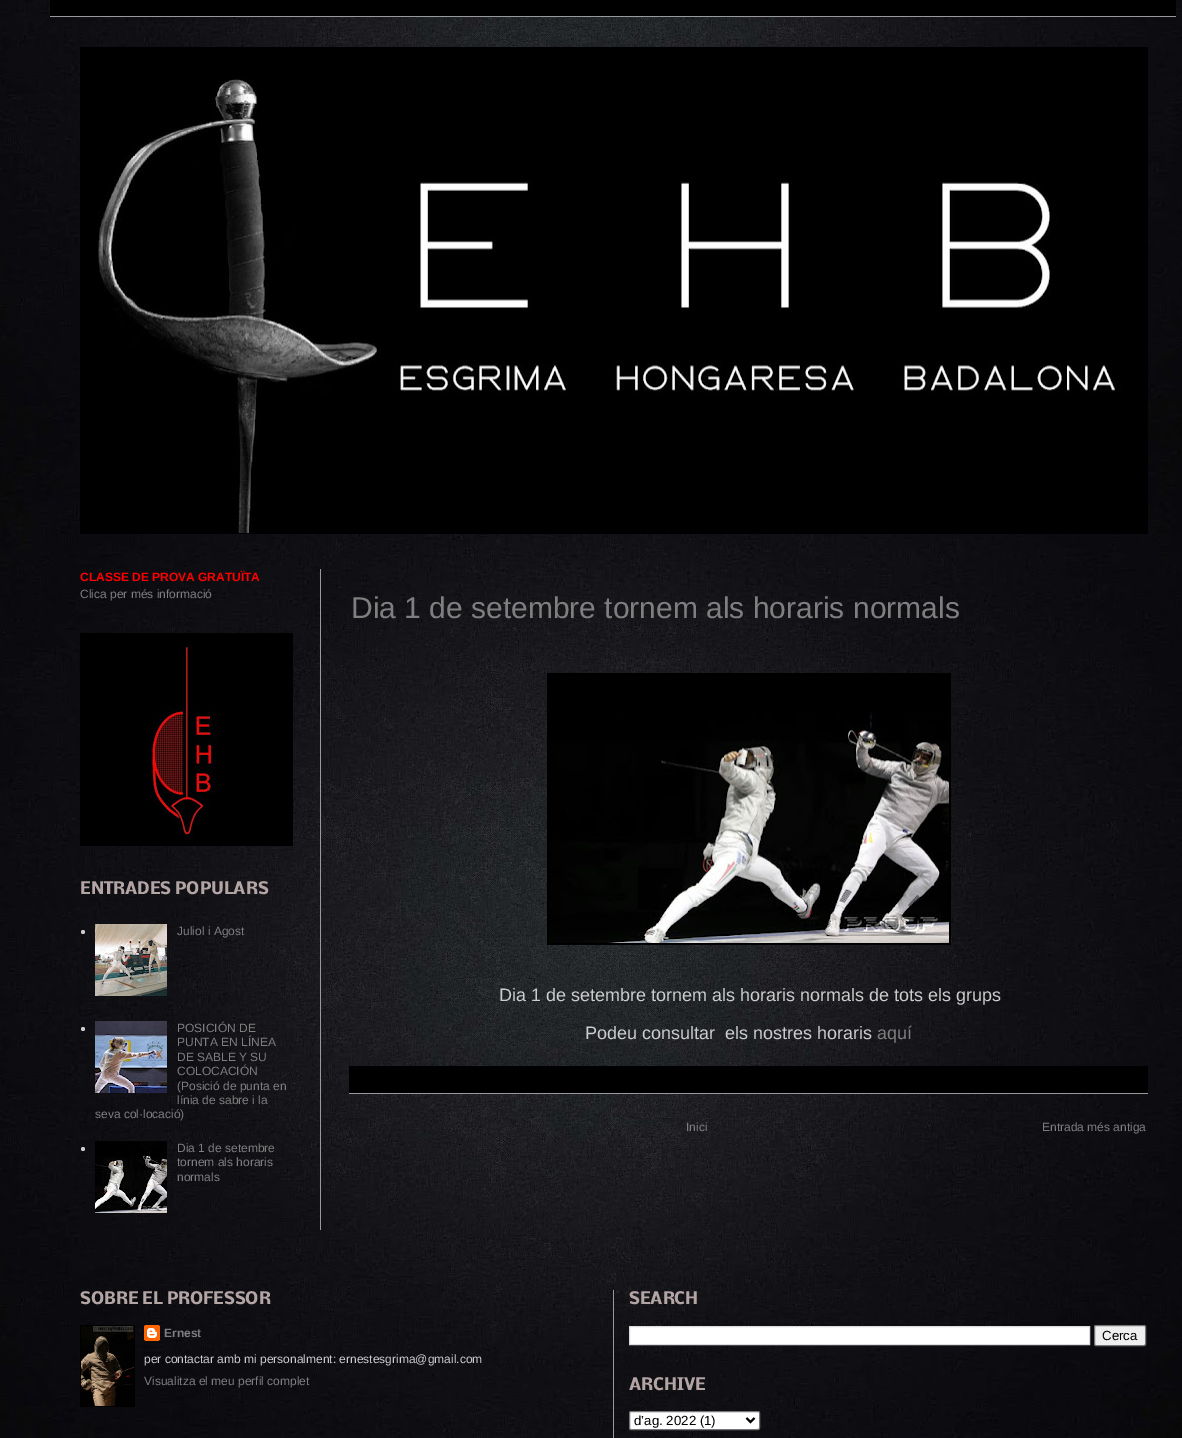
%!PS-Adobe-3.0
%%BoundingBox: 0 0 1182 1438
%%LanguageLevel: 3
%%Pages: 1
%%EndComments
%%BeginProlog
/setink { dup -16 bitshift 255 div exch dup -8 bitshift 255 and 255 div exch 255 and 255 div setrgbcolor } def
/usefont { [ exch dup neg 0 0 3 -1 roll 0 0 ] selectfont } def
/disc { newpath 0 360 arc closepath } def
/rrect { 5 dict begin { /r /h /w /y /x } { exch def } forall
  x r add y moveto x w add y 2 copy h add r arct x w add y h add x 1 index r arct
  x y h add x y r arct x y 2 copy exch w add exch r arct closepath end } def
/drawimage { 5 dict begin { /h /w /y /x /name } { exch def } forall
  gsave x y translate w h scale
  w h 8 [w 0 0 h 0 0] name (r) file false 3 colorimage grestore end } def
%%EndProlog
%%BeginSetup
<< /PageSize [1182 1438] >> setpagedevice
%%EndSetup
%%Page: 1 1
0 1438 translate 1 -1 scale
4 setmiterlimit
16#FFFFFF setink
0 0 1182 1438 rectfill
(img1.raw) 0 338 1182 1100 drawimage
(img2.raw) 0 0 1182 338 drawimage
[
    [50 0 1126 16 16#000000]
    [50 16 1126 1 16#999999]
    [80 47 1068 487 16#000000]
] { aload pop setink rectfill } forall
(img3.raw) 98 79 1023 454 drawimage
16#999999 setink
320 569 1 661 rectfill
/LiberationSans-Bold 12 usefont
16#FF0000 setink
80 581 moveto (CLASSE DE PROVA GRATUÏTA) show
/LiberationSans-Regular 12 usefont
16#7F7F7F setink
80 598 moveto (Clica per més informació) show
16#000000 setink
80 633 213 213 rectfill
(img4.raw) 145 642 72 200 drawimage
/Nobile-Bold 16 usefont
16#B4A5A5 setink
80 894 moveto (ENTRADES POPULARS) show
16#CCCCCC setink
83 932 2 disc fill
(img5.raw) 95 924 72 72 drawimage
/LiberationSans-Regular 12 usefont
16#7F7F7F setink
177 935 moveto (Juliol i Agost) show
16#CCCCCC setink
83 1029 2 disc fill
16#7F7F7F setink
[
    [(POSICIÓN DE) 177 1032]
    [(PUNTA EN LÍNEA) 177 1046]
    [(DE SABLE Y SU) 177 1061]
    [(COLOCACIÓN) 177 1075]
    [(\(Posició de punta en) 177 1090]
    [(línia de sabre i la) 177 1104]
    [(seva col·locació\)) 95 1118]
] { aload pop moveto show } forall
(img6.raw) 95 1021 72 72 drawimage
16#CCCCCC setink
83 1149 2 disc fill
(img7.raw) 95 1141 72 72 drawimage
16#7F7F7F setink
[
    [(Dia 1 de setembre) 177 1152]
    [(tornem als horaris) 177 1166]
    [(normals) 177 1181]
] { aload pop moveto show } forall
/LiberationSans-Regular 30 usefont
351 618 moveto (Dia 1 de setembre tornem als horaris normals) show
16#000000 setink
547 673 404 272 rectfill
(img8.raw) 549 712 400 231 drawimage
/LiberationSans-Regular 18 usefont
16#CCCCCC setink
499 1001 moveto (Dia 1 de setembre tornem als horaris normals de tots els grups) show
585 1039 moveto (Podeu consultar  els nostres horaris) show
16#7F7F7F setink
877 1039 moveto (aquí) show
16#000000 setink
349 1066 799 27 rectfill
16#999999 setink
349 1093 799 1 rectfill
/LiberationSans-Regular 12 usefont
16#7F7F7F setink
686 1131 moveto (Inici) show
1042 1131 moveto (Entrada més antiga) show
/Nobile-Bold 16 usefont
16#B4A5A5 setink
80 1304 moveto (SOBRE EL PROFESSOR) show
16#000000 setink
80 1325 55 82 rectfill
(img9.raw) 81 1326 53 80 drawimage
(img10.raw) 144 1325 16 16 drawimage
/LiberationSans-Bold 12 usefont
16#7F7F7F setink
164 1337 moveto (Ernest) show
/LiberationSans-Regular 12 usefont
16#CCCCCC setink
144 1363 moveto (per contactar amb mi personalment: ernestesgrima@gmail.com) show
16#7F7F7F setink
144 1385 moveto (Visualitza el meu perfil complet) show
16#999999 setink
613 1290 1 148 rectfill
/Nobile-Bold 16 usefont
16#B4A5A5 setink
629 1304 moveto (SEARCH) show
16#FFFFFF setink
629.5 1326.5 moveto 1089.5 1326.5 lineto 1089.5 1344.5 lineto 629.5 1344.5 lineto closepath gsave fill grestore
16#DDDDDD setink
stroke
16#EFEFEF setink
1094.5 1325.5 51 20 1.5 rrect gsave fill grestore
16#767676 setink
stroke
/LiberationSans-Regular 13.25 usefont
16#000000 setink
1102 1340 moveto (Cerca) show
/Nobile-Bold 16 usefont
16#B4A5A5 setink
629 1390 moveto (ARCHIVE) show
16#FFFFFF setink
629.5 1411.5 130 18 1.5 rrect gsave fill grestore
16#767676 setink
stroke
16#000000 setink
2 setlinewidth
746.5 1418 moveto 750.5 1422 lineto 754.5 1418 lineto stroke
/LiberationSans-Regular 13.25 usefont
634 1425 moveto (d’ag. 2022 \(1\)) show
showpage
%%EOF
